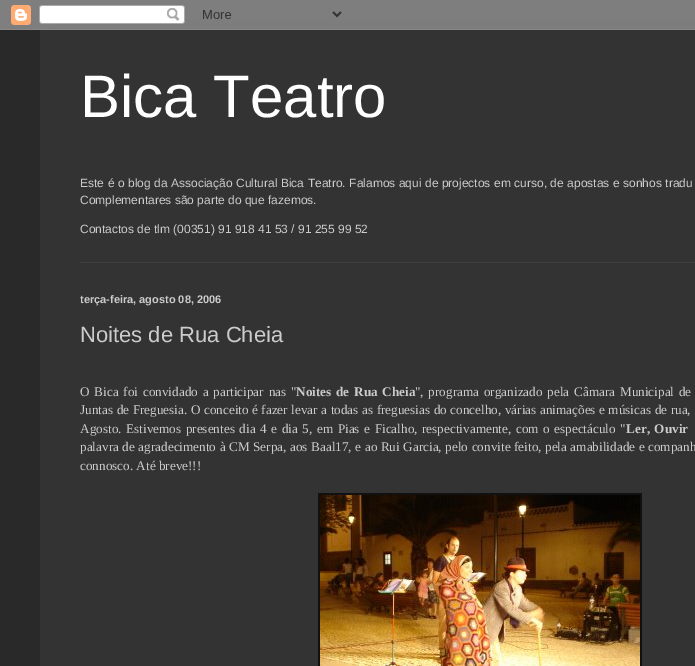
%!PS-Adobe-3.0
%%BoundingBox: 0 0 695 666
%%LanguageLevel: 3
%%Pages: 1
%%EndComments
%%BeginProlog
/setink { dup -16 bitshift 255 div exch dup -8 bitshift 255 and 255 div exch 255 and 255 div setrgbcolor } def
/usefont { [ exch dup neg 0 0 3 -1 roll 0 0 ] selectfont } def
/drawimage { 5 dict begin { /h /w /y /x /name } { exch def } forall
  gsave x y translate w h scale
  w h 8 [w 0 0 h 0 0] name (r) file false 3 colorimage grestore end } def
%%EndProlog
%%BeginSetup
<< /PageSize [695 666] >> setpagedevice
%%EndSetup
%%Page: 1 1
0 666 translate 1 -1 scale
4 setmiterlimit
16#292929 setink
0 0 695 666 rectfill
(img1.raw) 0 0 695 30 drawimage
16#333333 setink
40 30 655 636 rectfill
/LiberationSans-Regular 60 usefont
16#FFFFFF setink
80 117 moveto (Bica Teatro) show
/LiberationSans-Regular 12 usefont
16#CCCCCC setink
80 187 moveto 0.2 0 32 (Este é o blog da Associação Cultural Bica Teatro. Falamos aqui de projectos em curso, de apostas e sonhos tradu) widthshow
80 204 moveto (Complementares são parte do que fazemos.) show
80 233 moveto (Contactos de tlm \(00351\) 91 918 41 53 / 91 255 99 52) show
16#404040 setink
80 262 615 1 rectfill
/LiberationSans-Bold 11 usefont
16#CCCCCC setink
80 303 moveto (terça-feira, agosto 08, 2006) show
/LiberationSans-Regular 22 usefont
80 342 moveto (Noites de Rua Cheia) show
/LiberationSerif-Regular 13.2 usefont
80 396 moveto 1.5 0 32 (O Bica foi convidado a participar nas ") widthshow
/LiberationSerif-Bold 13.2 usefont
296 396 moveto 1.5 0 32 (Noites de Rua Cheia) widthshow
/LiberationSerif-Regular 13.2 usefont
415 396 moveto 1.5 0 32 (", programa organizado pela Câmara Municipal de) widthshow
80 414 moveto 0.25 0 32 (Juntas de Freguesia. O conceito é fazer levar a todas as freguesias do concelho, várias animações e músicas de rua,) widthshow
80 433 moveto 1.3 0 32 (Agosto. Estivemos presentes dia 4 e dia 5, em Pias e Ficalho, respectivamente, com o espectáculo ") widthshow
/LiberationSerif-Bold 13.2 usefont
626 433 moveto 1.3 0 32 (Ler, Ouvir) widthshow
/LiberationSerif-Regular 13.2 usefont
80 451 moveto 0.25 0 32 (palavra de agradecimento à CM Serpa, aos Baal17, e ao Rui Garcia, pelo convite feito, pela amabilidade e companh) widthshow
80 470 moveto (connosco. Até breve!!!) show
16#111111 setink
318 493 324 173 rectfill
(img2.raw) 320 495 320 171 drawimage
showpage
%%EOF
